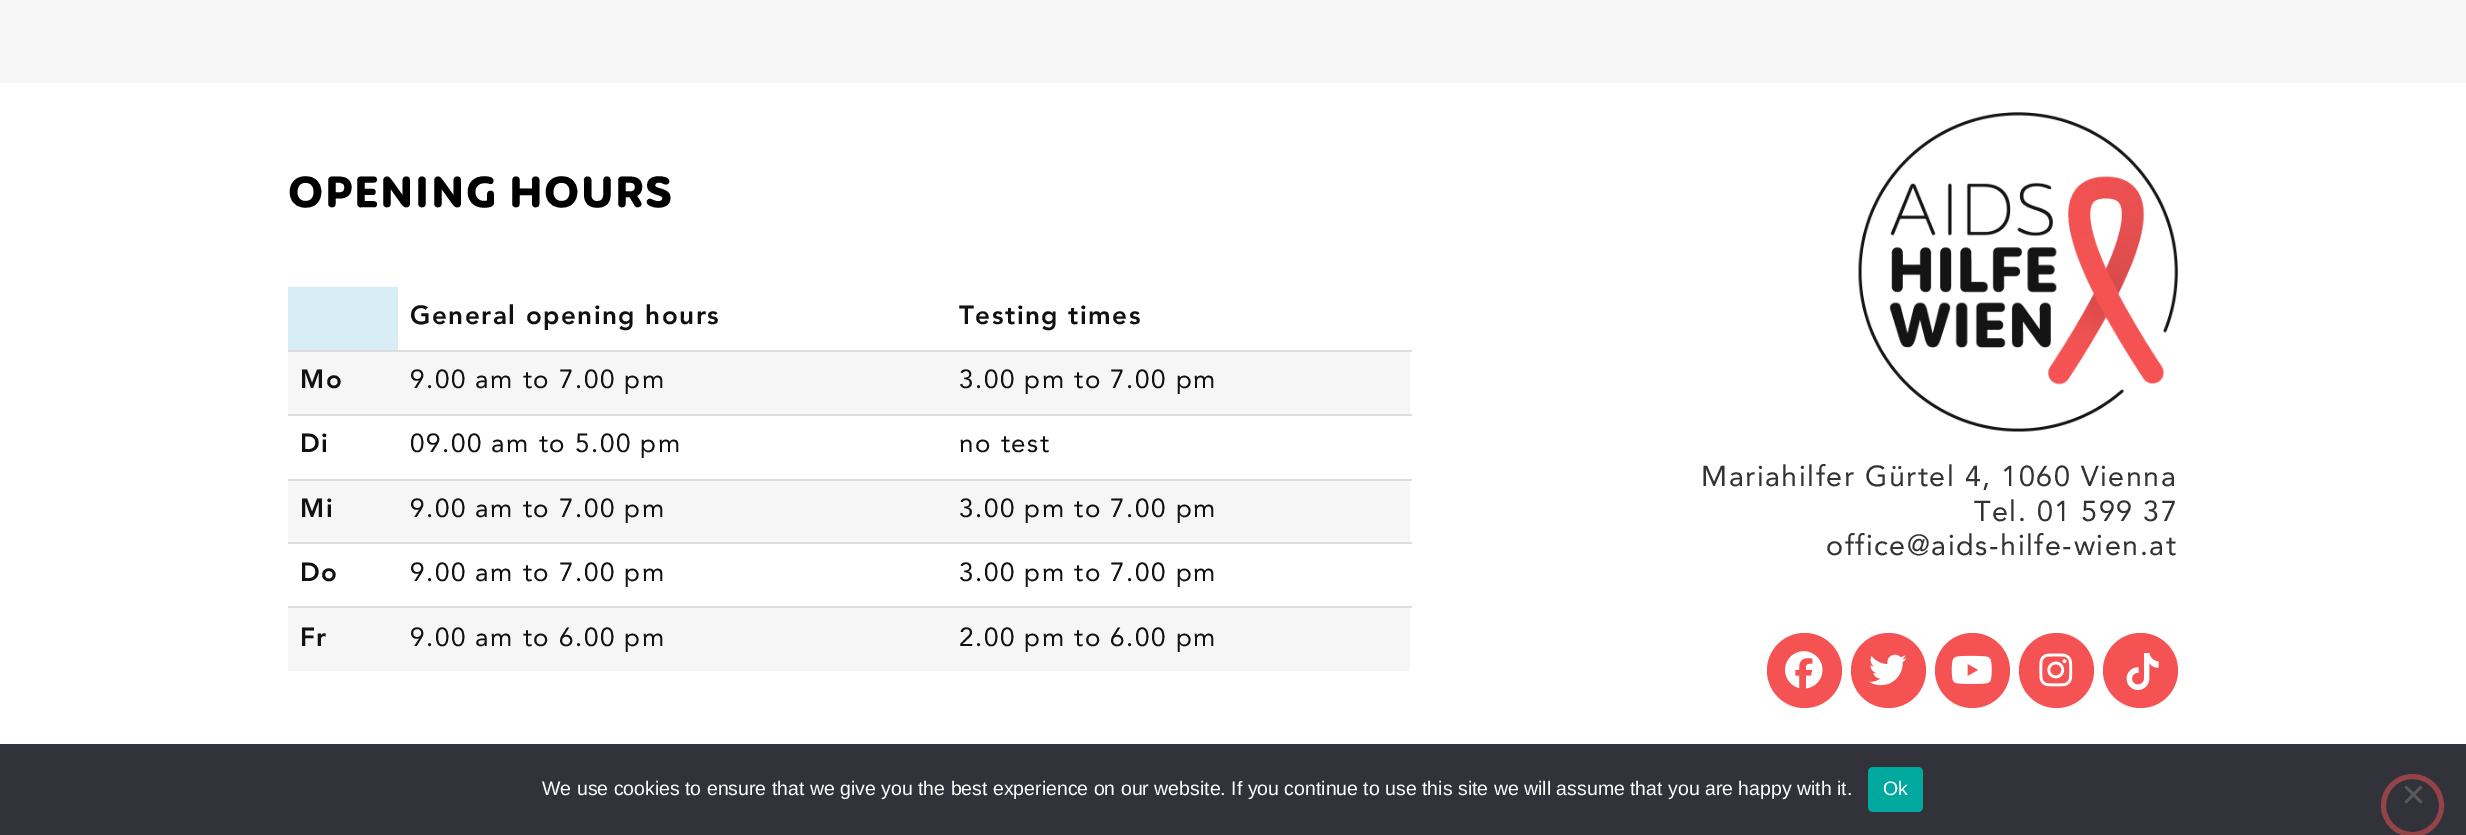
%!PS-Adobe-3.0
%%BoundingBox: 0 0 2466 835
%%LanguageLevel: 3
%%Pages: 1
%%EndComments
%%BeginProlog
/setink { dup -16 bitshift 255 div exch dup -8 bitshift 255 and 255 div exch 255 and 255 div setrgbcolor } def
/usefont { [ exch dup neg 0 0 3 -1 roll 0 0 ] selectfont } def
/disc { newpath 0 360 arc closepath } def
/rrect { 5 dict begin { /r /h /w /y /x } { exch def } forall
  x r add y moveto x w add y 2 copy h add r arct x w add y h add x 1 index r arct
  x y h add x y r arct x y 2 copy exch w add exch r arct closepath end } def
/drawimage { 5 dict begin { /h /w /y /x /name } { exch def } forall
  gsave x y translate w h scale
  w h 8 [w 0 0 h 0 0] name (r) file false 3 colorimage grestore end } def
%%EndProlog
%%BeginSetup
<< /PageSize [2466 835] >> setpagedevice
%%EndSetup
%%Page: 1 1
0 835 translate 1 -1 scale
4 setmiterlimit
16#F6F6F6 setink
0 0 2466 835 rectfill
16#FFFFFF setink
0 83 2466 661 rectfill
/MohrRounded-Bold 42 usefont
16#000000 setink
288 207 moveto 1.5 0 (OPENING HOURS) ashow
16#D9EDF7 setink
288 287 110 63 rectfill
/Avenir-Black 26 usefont
16#111111 setink
410 324 moveto 1.5 0 (General opening hours) ashow
959 324 moveto 1.5 0 (Testing times) ashow
16#F6F6F6 setink
288 352 1122 62 rectfill
16#111111 setink
300 388 moveto 1.5 0 (Mo) ashow
/Avenir-Regular 26 usefont
410 388 moveto 1.5 0 (9.00 am to 7.00 pm) ashow
16#DDDDDD setink
288 350 1124 2 rectfill
16#111111 setink
959 388 moveto 1.5 0 (3.00 pm to 7.00 pm) ashow
/Avenir-Black 26 usefont
300 452 moveto 1.5 0 (Di) ashow
/Avenir-Regular 26 usefont
410 452 moveto 1.5 0 (09.00 am to 5.00 pm) ashow
16#DDDDDD setink
288 414 1124 2 rectfill
16#111111 setink
959 452 moveto 1.5 0 (no test) ashow
16#F6F6F6 setink
288 481 1122 61 rectfill
/Avenir-Black 26 usefont
16#111111 setink
300 517 moveto 1.5 0 (Mi) ashow
/Avenir-Regular 26 usefont
410 517 moveto 1.5 0 (9.00 am to 7.00 pm) ashow
16#DDDDDD setink
288 479 1124 2 rectfill
16#111111 setink
959 517 moveto 1.5 0 (3.00 pm to 7.00 pm) ashow
/Avenir-Black 26 usefont
300 581 moveto 1.5 0 (Do) ashow
/Avenir-Regular 26 usefont
410 581 moveto 1.5 0 (9.00 am to 7.00 pm) ashow
16#DDDDDD setink
288 542 1124 2 rectfill
16#111111 setink
959 581 moveto 1.5 0 (3.00 pm to 7.00 pm) ashow
16#F6F6F6 setink
288 608 1122 63 rectfill
/Avenir-Black 26 usefont
16#111111 setink
300 646 moveto 1.5 0 (Fr) ashow
/Avenir-Regular 26 usefont
410 646 moveto 1.5 0 (9.00 am to 6.00 pm) ashow
16#DDDDDD setink
288 606 1124 2 rectfill
16#111111 setink
959 646 moveto 1.5 0 (2.00 pm to 6.00 pm) ashow
(img1.raw) 1858 112 320 320 drawimage
/Avenir-Regular 28.75 usefont
16#343333 setink
1701 486 moveto 1.5 0 (Mariahilfer Gürtel 4, 1060 Vienna) ashow
1974 521 moveto 1.5 0 (Tel. 01 599 37) ashow
1826 555 moveto 1.5 0 (office@aids-hilfe-wien.at) ashow
16#F55353 setink
1804.5 670.5 37.5 disc fill
(img2.raw) 1785 651 38 38 drawimage
1888.5 670.5 37.5 disc fill
(img3.raw) 1869 654 38 32 drawimage
1972.5 670.5 37.5 disc fill
(img4.raw) 1951 655 41 29 drawimage
2056.5 670.5 37.5 disc fill
(img5.raw) 2039 653 34 34 drawimage
2140.5 670.5 37.5 disc fill
(img6.raw) 2126 653 33 37 drawimage
16#32323A setink
0 744 2466 91 rectfill
/LiberationSans-Regular 19.5 usefont
16#FFFFFF setink
542 795 moveto (We use cookies to ensure that we give you the best experience on our website. If you continue to use this site we will assume that you are happy with it.) show
16#00A99D setink
1868 767 55 45 5 rrect fill
16#FFFFFF setink
1883 795 moveto (Ok) show
16#944347 setink
5 setlinewidth
2412.5 805.5 29 disc stroke
16#59595D setink
2420.5 785.5 moveto 2422.5 787.5 lineto 2406.5 803.5 lineto 2404.5 801.5 lineto closepath fill
2404.5 787.5 moveto 2406.5 785.5 lineto 2422.5 801.5 lineto 2420.5 803.5 lineto closepath fill
showpage
%%EOF
